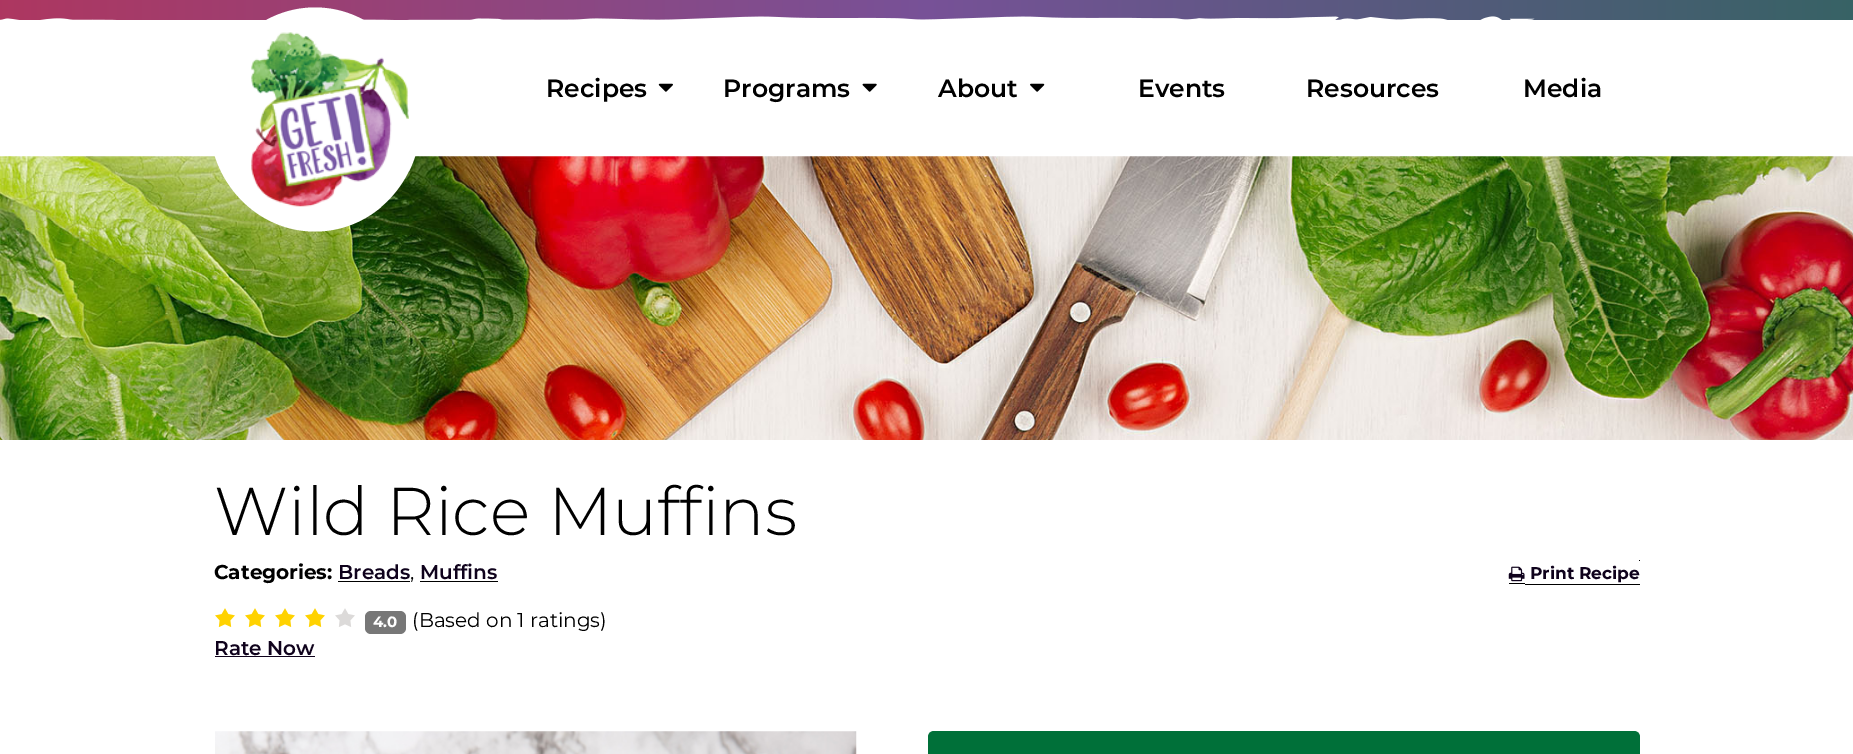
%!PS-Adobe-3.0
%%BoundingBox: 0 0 1853 754
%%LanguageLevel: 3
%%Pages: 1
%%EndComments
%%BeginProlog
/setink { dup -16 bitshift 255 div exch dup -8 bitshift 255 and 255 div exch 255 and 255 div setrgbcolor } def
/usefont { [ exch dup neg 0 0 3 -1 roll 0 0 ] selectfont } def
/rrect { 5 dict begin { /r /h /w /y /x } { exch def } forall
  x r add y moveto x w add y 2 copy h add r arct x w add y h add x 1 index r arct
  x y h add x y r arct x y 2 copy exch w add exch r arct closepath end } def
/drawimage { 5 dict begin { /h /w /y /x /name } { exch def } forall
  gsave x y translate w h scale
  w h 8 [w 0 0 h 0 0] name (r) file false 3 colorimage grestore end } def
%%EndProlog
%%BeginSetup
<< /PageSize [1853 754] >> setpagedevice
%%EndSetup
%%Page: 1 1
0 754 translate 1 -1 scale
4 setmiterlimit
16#FFFFFF setink
0 0 1853 754 rectfill
(img1.raw) 0 0 1853 20 drawimage
(img6.raw) 0 156 1853 284 drawimage
315 7.5 moveto 373.5 7.5 421 57.5 421 119.5 curveto 421 181.5 373.5 231.5 315 231.5 curveto 256.5 231.5 209 181.5 209 119.5 curveto 209 57.5 256.5 7.5 315 7.5 curveto closepath fill
(img2.raw) 251 32 158 175 drawimage
/Montserrat-SemiBold 25 usefont
16#000000 setink
546 97 moveto (Recipes) show
(img3.raw) 658 83 15 9 drawimage
723 97 moveto (Programs) show
(img4.raw) 862 83 15 9 drawimage
938 97 moveto (About) show
(img5.raw) 1030 83 15 9 drawimage
[
    [(Events) 1138 97]
    [(Resources) 1306 97]
    [(Media) 1523 97]
] { aload pop moveto show } forall
/Montserrat-Light 67.5 usefont
214 535 moveto (Wild Rice Muffins) show
/Montserrat-Bold 20 usefont
214 579 moveto (Categories:) show
/Montserrat-SemiBold 20 usefont
16#0F021C setink
338 579 moveto (Breads) show
16#000000 setink
338 581 72 1 rectfill
/Montserrat-Regular 20 usefont
410 579 moveto (,) show
/Montserrat-SemiBold 20 usefont
16#0F021C setink
420 579 moveto (Muffins) show
[
    [420 581 78 1 16#000000]
    [1509 583 16 1 16#000000]
    [1525 584 115 1 16#000000]
    [1639 560 1 1 16#000000]
] { aload pop setink rectfill } forall
(img7.raw) 1508 566 17 16 drawimage
/Montserrat-Bold 17 usefont
16#0F021C setink
1530 579 moveto (Print Recipe) show
(img8.raw) 215 608 20 19 drawimage
(img8.raw) 245 608 20 19 drawimage
(img8.raw) 275 608 20 19 drawimage
(img8.raw) 305 608 20 19 drawimage
(img9.raw) 335 608 20 19 drawimage
16#777777 setink
365 611 41 23 6 rrect fill
/Montserrat-Bold 15 usefont
16#FFFFFF setink
373 627 moveto (4.0) show
/Montserrat-Regular 20 usefont
16#000000 setink
412 627 moveto (\(Based on 1 ratings\)) show
/Montserrat-SemiBold 20 usefont
16#0F021C setink
214 655 moveto (Rate Now) show
215 656 100 1 rectfill
(img10.raw) 215 731 642 23 drawimage
16#007039 setink
934 731 moveto 1634 731 lineto 1637.5 731 1640 733.5 1640 737 curveto 1640 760 lineto 928 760 lineto 928 737 lineto 928 733.5 930.5 731 934 731 curveto closepath fill
showpage
%%EOF
